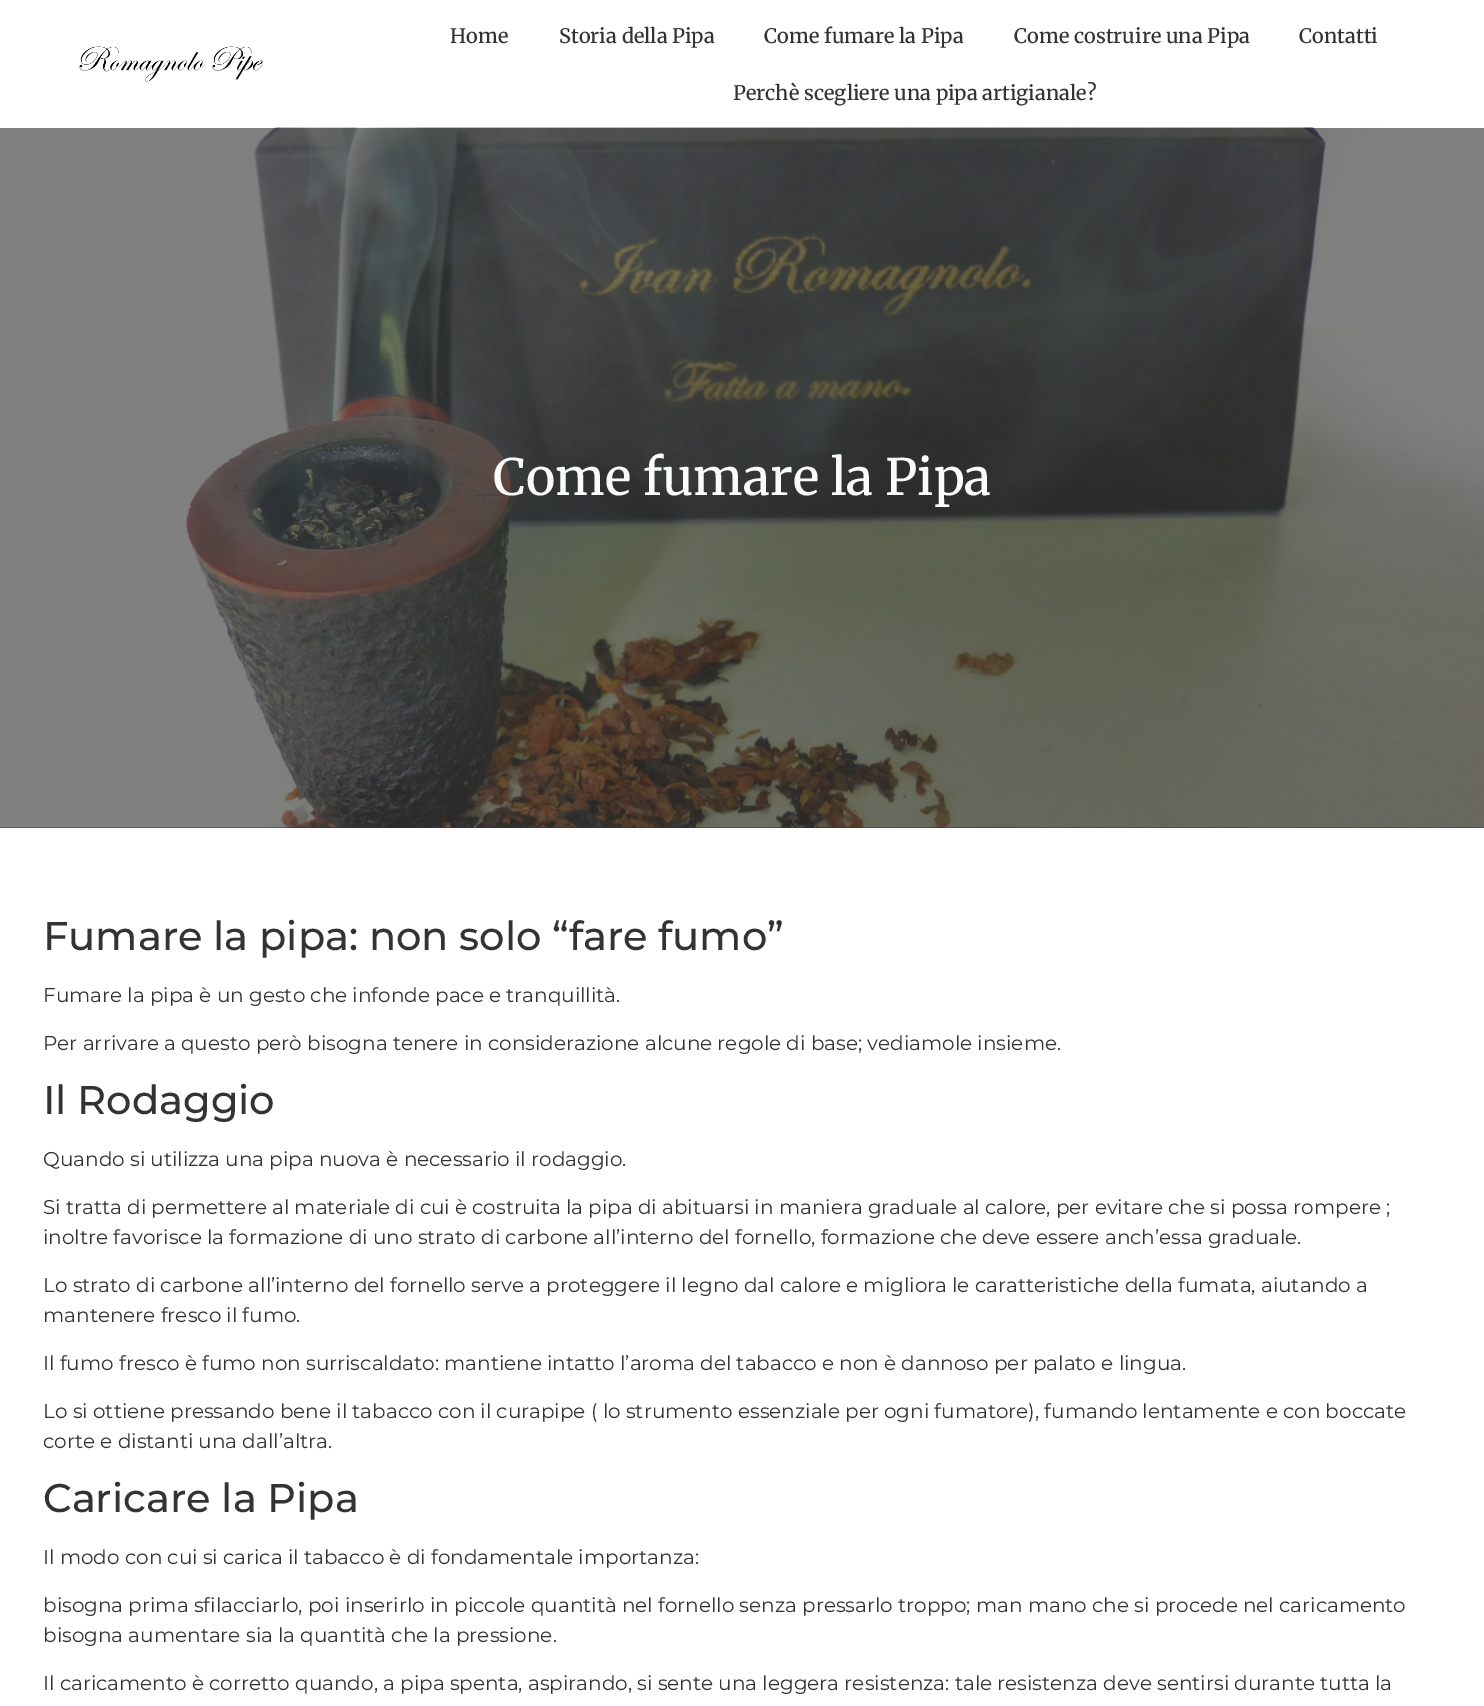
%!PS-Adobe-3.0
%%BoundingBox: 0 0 1484 1706
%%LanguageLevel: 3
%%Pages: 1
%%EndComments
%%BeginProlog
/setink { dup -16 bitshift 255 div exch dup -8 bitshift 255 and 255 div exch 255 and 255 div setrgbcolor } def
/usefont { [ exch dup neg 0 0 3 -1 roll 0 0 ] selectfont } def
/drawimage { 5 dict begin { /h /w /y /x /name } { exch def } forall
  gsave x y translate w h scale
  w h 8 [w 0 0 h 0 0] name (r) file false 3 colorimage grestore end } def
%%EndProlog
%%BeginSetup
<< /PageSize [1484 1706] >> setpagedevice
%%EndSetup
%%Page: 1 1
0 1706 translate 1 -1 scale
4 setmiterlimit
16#FFFFFF setink
0 0 1484 1706 rectfill
(img1.raw) 79 46 184 36 drawimage
/Merriweather-Medium 20 usefont
16#333333 setink
[
    [(Home) 450 43]
    [(Storia della Pipa) 559 43]
    [(Come fumare la Pipa) 764 43]
    [(Come costruire una Pipa) 1014 43]
    [(Contatti) 1299 43]
    [(Perchè scegliere una pipa artigianale?) 733 100]
] { aload pop moveto show } forall
0 827 1484 1 rectfill
(img2.raw) 0 127 1484 701 drawimage
/Merriweather-Medium 50 usefont
16#FAFAFA setink
493 495 moveto (Come fumare la Pipa) show
/Montserrat-Medium 40 usefont
16#333333 setink
43 950 moveto (Fumare la pipa: non solo “fare fumo”) show
/Montserrat-Regular 20 usefont
43 1002 moveto (Fumare la pipa è un gesto che infonde pace e tranquillità.) show
43 1050 moveto (Per arrivare a questo però bisogna tenere in considerazione alcune regole di base; vediamole insieme.) show
/Montserrat-Medium 40 usefont
43 1114 moveto (Il Rodaggio) show
/Montserrat-Regular 20 usefont
[
    [(Quando si utilizza una pipa nuova è necessario il rodaggio.) 43 1166]
    [(Si tratta di permettere al materiale di cui è costruita la pipa di abituarsi in maniera graduale al calore, per evitare che si possa rompere ;) 43 1214]
    [(inoltre favorisce la formazione di uno strato di carbone all’interno del fornello, formazione che deve essere anch’essa graduale.) 43 1244]
    [(Lo strato di carbone all’interno del fornello serve a proteggere il legno dal calore e migliora le caratteristiche della fumata, aiutando a) 43 1292]
    [(mantenere fresco il fumo.) 43 1322]
    [(Il fumo fresco è fumo non surriscaldato: mantiene intatto l’aroma del tabacco e non è dannoso per palato e lingua.) 43 1370]
    [(Lo si ottiene pressando bene il tabacco con il curapipe \( lo strumento essenziale per ogni fumatore\), fumando lentamente e con boccate) 43 1418]
    [(corte e distanti una dall’altra.) 43 1448]
] { aload pop moveto show } forall
/Montserrat-Medium 40 usefont
43 1512 moveto (Caricare la Pipa) show
/Montserrat-Regular 20 usefont
[
    [(Il modo con cui si carica il tabacco è di fondamentale importanza:) 43 1564]
    [(bisogna prima sfilacciarlo, poi inserirlo in piccole quantità nel fornello senza pressarlo troppo; man mano che si procede nel caricamento) 43 1612]
    [(bisogna aumentare sia la quantità che la pressione.) 43 1642]
    [(Il caricamento è corretto quando, a pipa spenta, aspirando, si sente una leggera resistenza: tale resistenza deve sentirsi durante tutta la) 43 1690]
] { aload pop moveto show } forall
showpage
%%EOF
